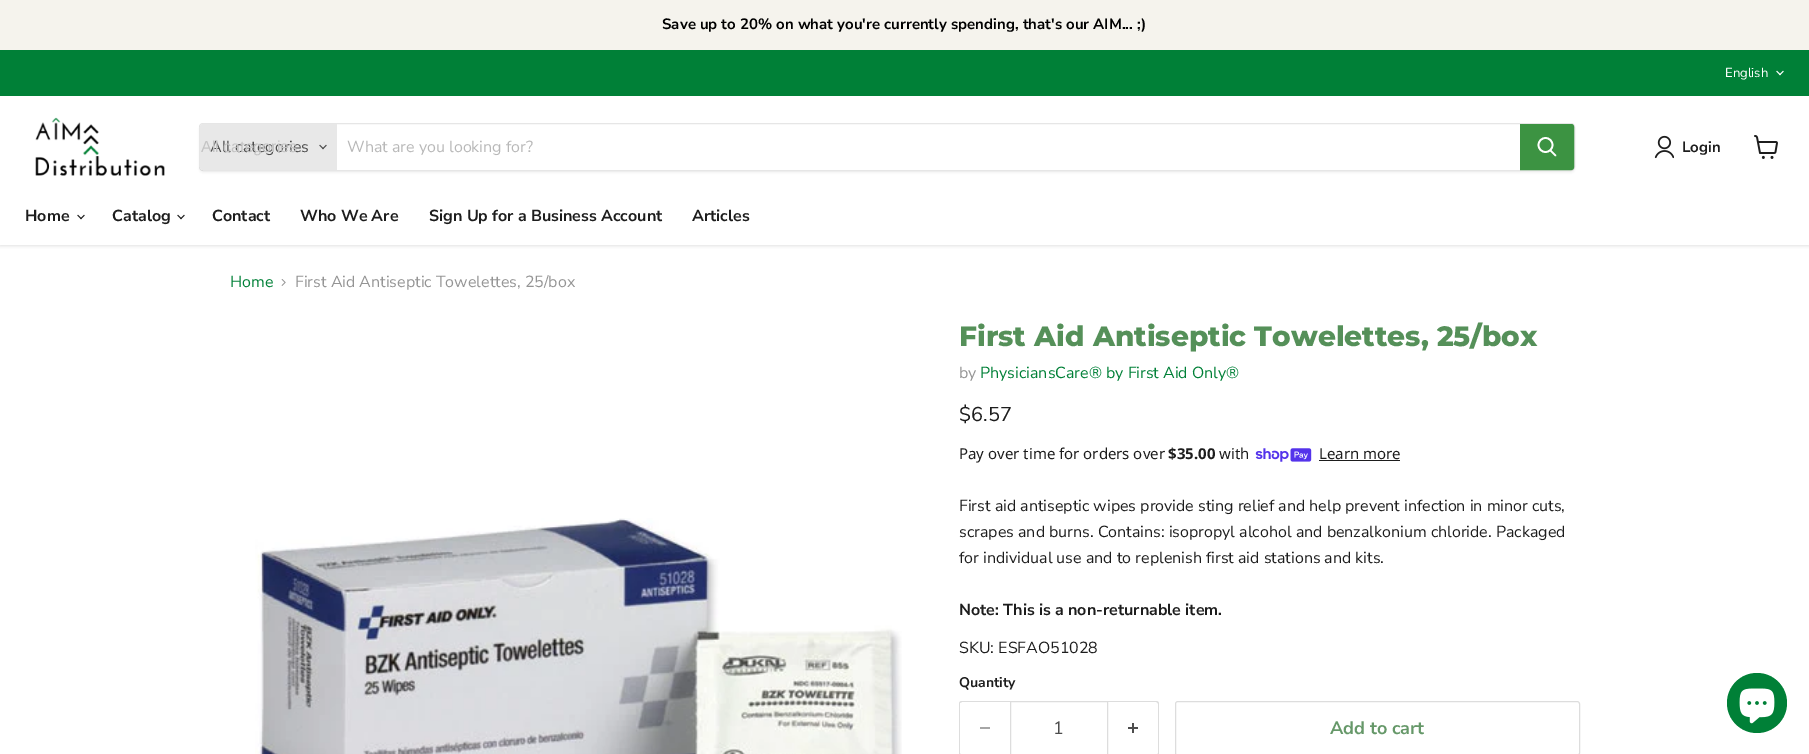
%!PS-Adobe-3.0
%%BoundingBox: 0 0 1809 754
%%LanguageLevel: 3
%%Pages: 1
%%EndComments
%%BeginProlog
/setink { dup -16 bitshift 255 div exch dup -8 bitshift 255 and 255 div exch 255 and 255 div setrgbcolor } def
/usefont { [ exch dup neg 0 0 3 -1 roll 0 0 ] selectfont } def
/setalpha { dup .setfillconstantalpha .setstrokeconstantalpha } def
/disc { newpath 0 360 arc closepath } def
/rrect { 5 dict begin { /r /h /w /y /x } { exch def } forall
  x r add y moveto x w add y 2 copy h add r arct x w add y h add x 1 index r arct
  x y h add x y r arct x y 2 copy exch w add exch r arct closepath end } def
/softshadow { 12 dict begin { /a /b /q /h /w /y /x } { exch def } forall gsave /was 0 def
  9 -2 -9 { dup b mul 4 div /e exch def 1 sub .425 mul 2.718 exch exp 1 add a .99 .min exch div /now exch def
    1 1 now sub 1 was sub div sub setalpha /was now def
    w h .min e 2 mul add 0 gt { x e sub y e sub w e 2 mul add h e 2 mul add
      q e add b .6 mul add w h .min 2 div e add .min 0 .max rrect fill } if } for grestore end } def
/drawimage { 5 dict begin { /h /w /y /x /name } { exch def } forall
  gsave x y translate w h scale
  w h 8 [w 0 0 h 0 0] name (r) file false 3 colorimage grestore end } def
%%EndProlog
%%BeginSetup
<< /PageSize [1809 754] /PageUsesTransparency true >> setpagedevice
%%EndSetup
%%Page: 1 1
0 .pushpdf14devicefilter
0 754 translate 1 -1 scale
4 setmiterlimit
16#FFFFFF setink
0 0 1809 754 rectfill
16#F5F3ED setink
0 0 1809 50 rectfill
/NunitoSans-Bold 15 usefont
16#000000 setink
662 29 moveto (Save up to 20% on what you're currently spending, that's our AIM... ;\)) show
gsave
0 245 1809 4 rectclip
16#808080 setink
0 98 1809 148 0 2 0.25 softshadow
grestore
16#008037 setink
0 50 1809 46 rectfill
16#FFFFFF setink
0 96 1809 1 rectfill
/NunitoSans-Regular 13 usefont
1725 77 moveto (English) show
(img1.raw) 1776 70 8 6 drawimage
(img2.raw) 35 117 130 59 drawimage
gsave
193 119 moveto 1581 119 lineto 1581 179 lineto 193 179 lineto closepath 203 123 moveto 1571 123 lineto 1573 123 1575 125 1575 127 curveto 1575 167 lineto 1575 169 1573 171 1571 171 curveto 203 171 lineto 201 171 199 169 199 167 curveto 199 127 lineto 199 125 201 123 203 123 curveto closepath eoclip newpath
16#808080 setink
199 125 1376 48 4 1.5 0.11 softshadow
grestore
0.2 setalpha
16#808080 setink
199.5 123.5 1375 47 3.5 rrect stroke
1 setalpha
16#E8E8E8 setink
203 124 moveto 337 124 lineto 337 170 lineto 203 170 lineto 201.5 170 200 168.5 200 167 curveto 200 127 lineto 200 125.5 201.5 124 203 124 curveto closepath fill
/NunitoSans-Regular 16 usefont
16#4D4D4D setink
210 152 moveto (All categories) show
/LiberationSans-Regular 16 usefont
16#C4C4C4 setink
201 152 moveto (All categories) show
(img3.raw) 319 144 8 6 drawimage
/NunitoSans-Regular 16 usefont
16#B8B8B8 setink
347 152 moveto (What are you looking for?) show
16#3C9342 setink
1520.5 124.5 moveto 1571 124.5 lineto 1572.5 124.5 1573.5 125.5 1573.5 127 curveto 1573.5 167 lineto 1573.5 168.5 1572.5 169.5 1571 169.5 curveto 1520.5 169.5 lineto closepath gsave fill grestore
stroke
16#FFFFFF setink
1.7 setlinewidth
1 setlinecap
1555.5 155.5 moveto 1550.5 150.5 lineto stroke
0 setlinecap
1545.5 145 7 disc stroke
(img4.raw) 1654 135 20 24 drawimage
/NunitoSans-Bold 15 usefont
16#1D1D1D setink
1682 152 moveto (Login) show
(img5.raw) 1754 135 24 24 drawimage
/NunitoSans-Bold 16 usefont
25 221 moveto (Home) show
(img6.raw) 77 214 8 6 drawimage
112 221 moveto (Catalog) show
(img6.raw) 177 214 8 6 drawimage
[
    [(Contact) 212 221]
    [(Who We Are) 300 221]
    [(Sign Up for a Business Account) 429 221]
    [(Articles) 692 221]
] { aload pop moveto show } forall
/NunitoSans-Regular 16 usefont
16#008037 setink
230 287 moveto (Home) show
(img7.raw) 281 279 5 7 drawimage
16#949494 setink
295 287 moveto (First Aid Antiseptic Towelettes, 25/box) show
(img8.raw) 255 518 647 236 drawimage
/Montserrat-ExtraBold 28 usefont
16#559059 setink
959 346 moveto (First Aid Antiseptic Towelettes, 25/box) show
/NunitoSans-Regular 16 usefont
16#949494 setink
959 378 moveto (by) show
16#008037 setink
980 378 moveto (PhysiciansCare® by First Aid Only®) show
/NunitoSans-Regular 20 usefont
16#1D1D1D setink
959 421 moveto ($6.57) show
/NotoSans-Regular 15 usefont
959 459 moveto (Pay over time for orders over) show
/NotoSans-Bold 15 usefont
1168 459 moveto ($35.00) show
/NotoSans-Regular 15 usefont
1219 459 moveto (with) show
(img9.raw) 1255 448 57 14 drawimage
1319 459 moveto (Learn more) show
1319 460 81 1 rectfill
/NunitoSans-Regular 16 usefont
[
    [(First aid antiseptic wipes provide sting relief and help prevent infection in minor cuts,) 959 511]
    [(scrapes and burns. Contains: isopropyl alcohol and benzalkonium chloride. Packaged) 959 537]
    [(for individual use and to replenish first aid stations and kits.) 959 563]
] { aload pop moveto show } forall
/NunitoSans-Bold 16 usefont
959 615 moveto (Note: This is a non-returnable item.) show
/NunitoSans-Regular 16 usefont
959 653 moveto (SKU: ESFAO51028) show
/NunitoSans-Bold 14 usefont
959 687 moveto (Quantity) show
16#DDDDDD setink
962 701 moveto 1010 701 lineto 1010 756 lineto 962 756 lineto 960 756 959 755 959 753 curveto 959 704 lineto 959 702 960 701 962 701 curveto closepath 962 702 moveto 1010 702 lineto 1010 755 lineto 970 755 lineto 966 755 960 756 960 753 curveto 960 703 lineto closepath eofill
16#A6A6A6 setink
980 727 10 2 rectfill
16#DDDDDD setink
1 setlinewidth
1010.5 701.5 97 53 rectstroke
/NunitoSans-Regular 18 usefont
16#4D4D4D setink
1053 734 moveto (1) show
16#DDDDDD setink
1108 701 moveto 1156 701 lineto 1158 701 1159 702 1159 704 curveto 1159 753 lineto 1159 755 1158 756 1156 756 curveto 1108 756 lineto closepath 1108 702 moveto 1156 702 lineto 1157 702 1158 703 1158 704 curveto 1158 753 lineto 1158 754 1157 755 1156 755 curveto 1108 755 lineto closepath eofill
(img10.raw) 1128 723 10 10 drawimage
1175.5 701.5 404 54 2.5 rrect stroke
/NunitoSans-Bold 18 usefont
16#669869 setink
1330 734 moveto (Add to cart) show
16#008037 setink
1757 703 30 disc fill
(img11.raw) 1739 688 36 36 drawimage
.poppdf14devicefilter showpage
%%EOF
